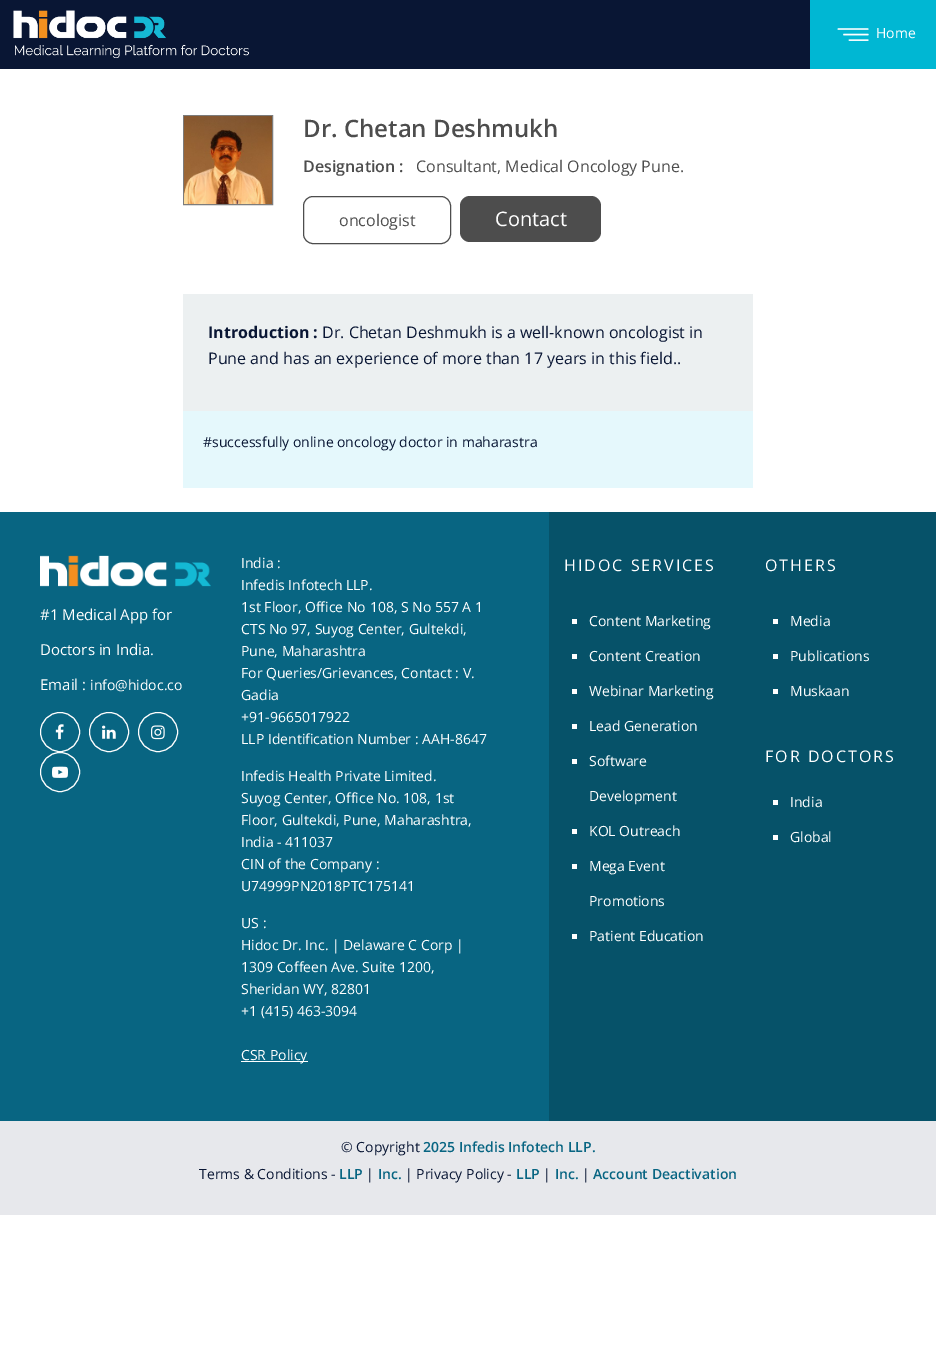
%!PS-Adobe-3.0
%%BoundingBox: 0 0 936 1369
%%LanguageLevel: 3
%%Pages: 1
%%EndComments
%%BeginProlog
/setink { dup -16 bitshift 255 div exch dup -8 bitshift 255 and 255 div exch 255 and 255 div setrgbcolor } def
/usefont { [ exch dup neg 0 0 3 -1 roll 0 0 ] selectfont } def
/disc { newpath 0 360 arc closepath } def
/rrect { 5 dict begin { /r /h /w /y /x } { exch def } forall
  x r add y moveto x w add y 2 copy h add r arct x w add y h add x 1 index r arct
  x y h add x y r arct x y 2 copy exch w add exch r arct closepath end } def
/drawimage { 5 dict begin { /h /w /y /x /name } { exch def } forall
  gsave x y translate w h scale
  w h 8 [w 0 0 h 0 0] name (r) file false 3 colorimage grestore end } def
%%EndProlog
%%BeginSetup
<< /PageSize [936 1369] >> setpagedevice
%%EndSetup
%%Page: 1 1
0 1369 translate 1 -1 scale
4 setmiterlimit
16#FFFFFF setink
0 0 936 1369 rectfill
16#091634 setink
0 0 810 69 rectfill
(img1.raw) 13 10 236 49 drawimage
16#00B7D3 setink
810 0 126 69 rectfill
(img2.raw) 837 28 32 13 drawimage
/OpenSans-Regular 14 usefont
16#FFFFFF setink
876 38 moveto (Home) show
16#7C7C7C setink
183.5 115.5 89 89 rectstroke
(img3.raw) 184 116 88 88 drawimage
/OpenSans-SemiBold 24 usefont
16#4D4D4D setink
303 137 moveto (Dr. Chetan Deshmukh) show
/OpenSans-SemiBold 16 usefont
303 172 moveto (Designation :) show
/OpenSans-Regular 16 usefont
416 172 moveto (Consultant, Medical Oncology Pune.) show
303.5 196.5 147 47 9.5 rrect stroke
339 226 moveto (oncologist) show
460 196 141 46 10 rrect fill
/OpenSans-Regular 20 usefont
16#FFFFFF setink
495 226 moveto (Contact) show
16#ECF0F1 setink
183 294 570 117 rectfill
/OpenSans-Bold 16 usefont
16#091634 setink
208 338 moveto (Introduction :) show
/OpenSans-Regular 16 usefont
322 338 moveto (Dr. Chetan Deshmukh is a well-known oncologist in) show
208 364 moveto (Pune and has an experience of more than 17 years in this field..) show
16#E5F8FC setink
183 411 570 77 rectfill
/OpenSans-Regular 14 usefont
16#091634 setink
203 447 moveto (#successfully online oncology doctor in maharastra) show
16#086582 setink
0 512 549 609 rectfill
(img4.raw) 40 555 171 32 drawimage
/OpenSans-Regular 15 usefont
16#FFFFFF setink
[
    [(#1 Medical App for) 40 620]
    [(Doctors in India.) 40 655]
    [(Email :) 40 690]
] { aload pop moveto show } forall
/OpenSans-Regular 14 usefont
90 690 moveto (info@hidoc.co) show
16#FFFEFE setink
60 732 19.5 disc stroke
(img5.raw) 55 724 9 16 drawimage
109 732 19.5 disc stroke
(img6.raw) 102 725 14 14 drawimage
158 732 19.5 disc stroke
(img7.raw) 151 725 14 15 drawimage
60 772 19.5 disc stroke
(img8.raw) 52 766 16 12 drawimage
16#FFFFFF setink
[
    [(India :) 241 568]
    [(Infedis Infotech LLP.) 241 590]
    [(1st Floor, Office No 108, S No 557 A 1) 241 612]
    [(CTS No 97, Suyog Center, Gultekdi,) 241 634]
    [(Pune, Maharashtra) 241 656]
    [(For Queries/Grievances, Contact : V.) 241 678]
    [(Gadia) 241 700]
    [(+91-9665017922) 241 722]
    [(LLP Identification Number : AAH-8647) 241 744]
    [(Infedis Health Private Limited.) 241 781]
    [(Suyog Center, Office No. 108, 1st) 241 803]
    [(Floor, Gultekdi, Pune, Maharashtra,) 241 825]
    [(India - 411037) 241 847]
    [(CIN of the Company :) 241 869]
    [(U74999PN2018PTC175141) 241 891]
    [(US :) 241 928]
    [(Hidoc Dr. Inc. | Delaware C Corp |) 241 950]
    [(1309 Coffeen Ave. Suite 1200,) 241 972]
    [(Sheridan WY, 82801) 241 994]
    [(+1 \(415\) 463-3094) 241 1016]
] { aload pop moveto show } forall
241 1061 67 1 rectfill
241 1060 moveto (CSR Policy) show
16#065269 setink
549 512 387 609 rectfill
/OpenSans-Regular 16 usefont
16#FFFFFF setink
564 571 moveto 2 0 (HIDOC SERVICES) ashow
572 619 5 5 rectfill
/OpenSans-Regular 14 usefont
589 626 moveto (Content Marketing) show
572 654 5 5 rectfill
589 661 moveto (Content Creation) show
572 689 5 5 rectfill
589 696 moveto (Webinar Marketing) show
572 724 5 5 rectfill
589 731 moveto (Lead Generation) show
572 759 5 5 rectfill
589 766 moveto (Software) show
589 801 moveto (Development) show
572 829 5 5 rectfill
589 836 moveto (KOL Outreach) show
572 864 5 5 rectfill
589 871 moveto (Mega Event) show
589 906 moveto (Promotions) show
572 934 5 5 rectfill
589 941 moveto (Patient Education) show
/OpenSans-Regular 16 usefont
765 571 moveto 2 0 (OTHERS) ashow
773 619 5 5 rectfill
/OpenSans-Regular 14 usefont
790 626 moveto (Media) show
773 654 5 5 rectfill
790 661 moveto (Publications) show
773 689 5 5 rectfill
790 696 moveto (Muskaan) show
/OpenSans-Regular 16 usefont
765 762 moveto 2 0 (FOR DOCTORS) ashow
773 800 5 5 rectfill
/OpenSans-Regular 14 usefont
790 807 moveto (India) show
773 835 5 5 rectfill
790 842 moveto (Global) show
16#E7E8EC setink
0 1121 936 94 rectfill
16#091634 setink
341 1152 moveto (© Copyright) show
/OpenSans-SemiBold 14 usefont
16#086582 setink
423 1152 moveto (2025 Infedis Infotech LLP.) show
/OpenSans-Regular 14 usefont
16#091634 setink
199 1179 moveto (Terms & Conditions -) show
/OpenSans-SemiBold 14 usefont
16#086582 setink
339 1179 moveto (LLP) show
/OpenSans-Regular 14 usefont
16#091634 setink
366 1179 moveto (|) show
/OpenSans-SemiBold 14 usefont
16#086582 setink
378 1179 moveto (Inc.) show
/OpenSans-Regular 14 usefont
16#091634 setink
405 1179 moveto (| Privacy Policy -) show
/OpenSans-SemiBold 14 usefont
16#086582 setink
516 1179 moveto (LLP) show
/OpenSans-Regular 14 usefont
16#091634 setink
543 1179 moveto (|) show
/OpenSans-SemiBold 14 usefont
16#086582 setink
555 1179 moveto (Inc.) show
/OpenSans-Regular 14 usefont
16#091634 setink
582 1179 moveto (|) show
/OpenSans-SemiBold 14 usefont
16#086582 setink
593 1179 moveto (Account Deactivation) show
showpage
%%EOF
